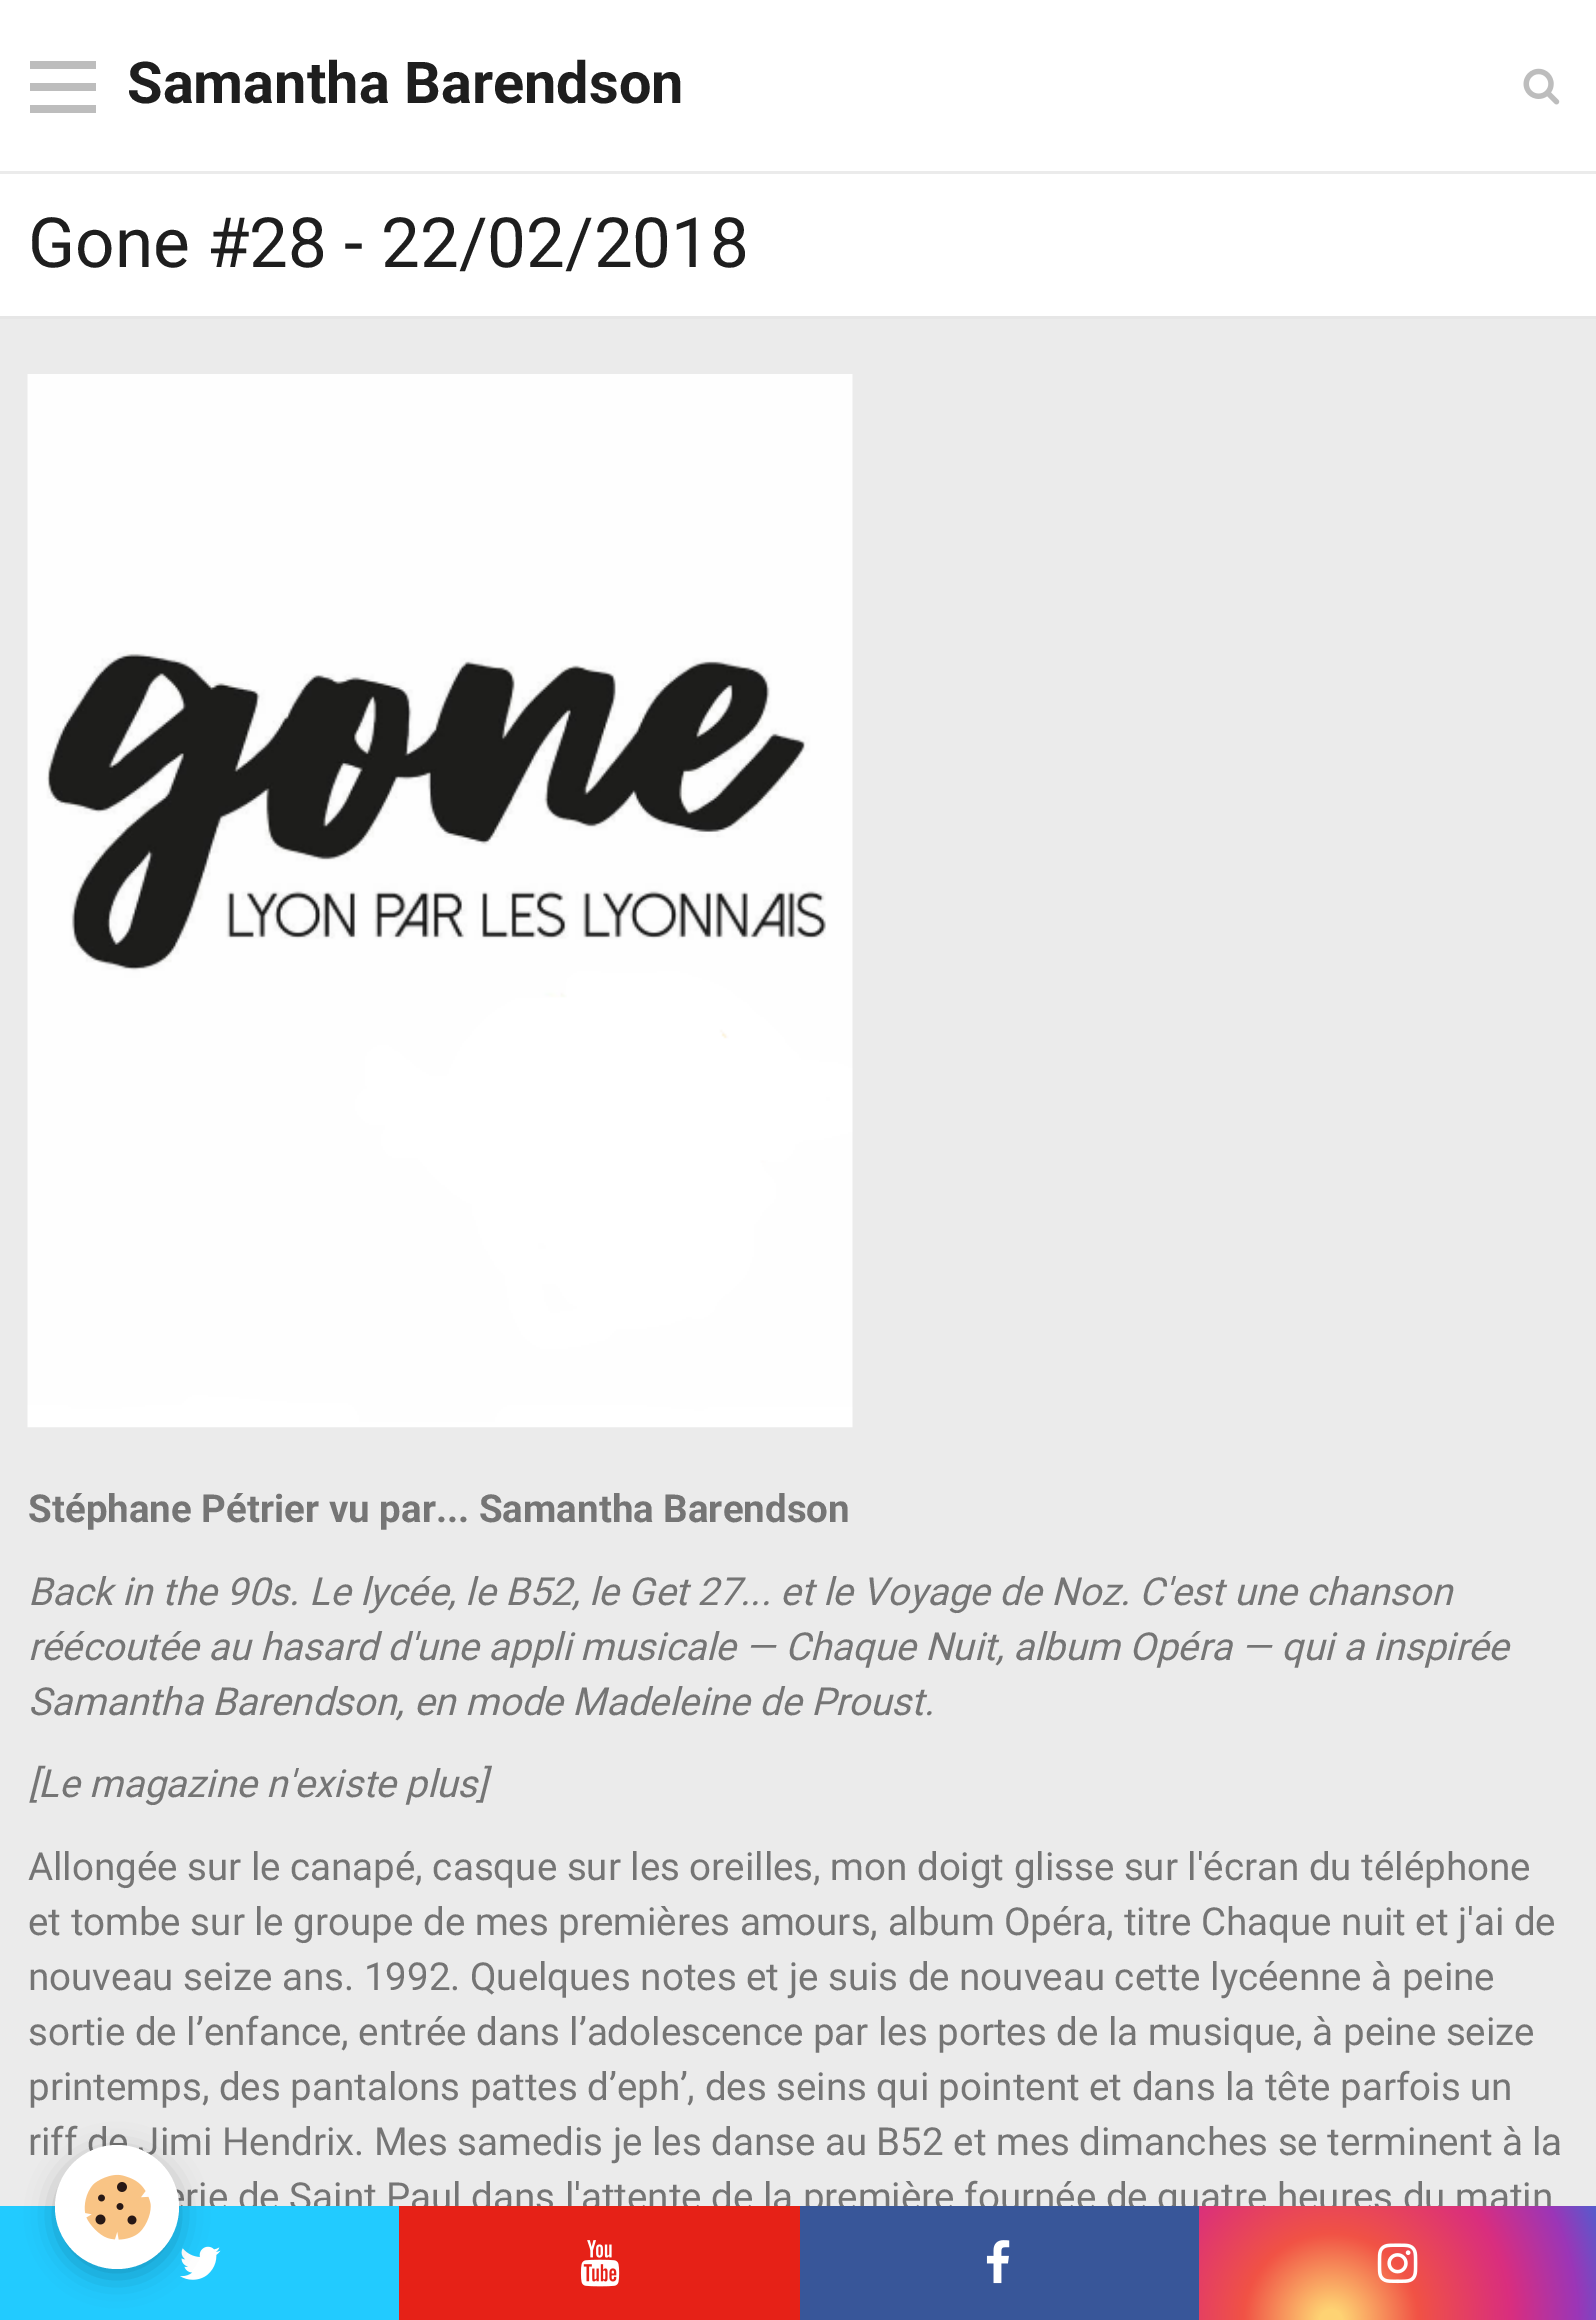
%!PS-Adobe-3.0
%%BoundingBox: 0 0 1596 2320
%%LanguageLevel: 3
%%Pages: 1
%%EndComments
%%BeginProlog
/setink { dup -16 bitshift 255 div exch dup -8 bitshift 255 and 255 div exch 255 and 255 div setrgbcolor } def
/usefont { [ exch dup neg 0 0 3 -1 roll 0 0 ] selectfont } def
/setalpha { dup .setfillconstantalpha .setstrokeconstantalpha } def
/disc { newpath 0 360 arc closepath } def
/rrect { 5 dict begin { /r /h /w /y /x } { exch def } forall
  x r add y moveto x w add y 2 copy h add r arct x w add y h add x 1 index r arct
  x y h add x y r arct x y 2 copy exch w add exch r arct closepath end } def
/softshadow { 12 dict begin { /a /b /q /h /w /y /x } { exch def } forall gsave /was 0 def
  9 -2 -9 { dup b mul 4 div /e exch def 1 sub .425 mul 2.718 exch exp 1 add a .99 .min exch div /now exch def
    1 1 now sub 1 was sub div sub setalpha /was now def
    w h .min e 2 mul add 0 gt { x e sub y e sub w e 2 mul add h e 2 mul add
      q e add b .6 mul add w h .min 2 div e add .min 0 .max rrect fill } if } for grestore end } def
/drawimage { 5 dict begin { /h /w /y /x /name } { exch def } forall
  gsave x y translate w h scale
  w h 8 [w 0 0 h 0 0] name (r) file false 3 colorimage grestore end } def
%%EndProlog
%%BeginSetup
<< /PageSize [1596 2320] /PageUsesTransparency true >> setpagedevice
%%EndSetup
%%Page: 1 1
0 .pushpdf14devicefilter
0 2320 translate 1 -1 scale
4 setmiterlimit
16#EBEBEB setink
0 0 1596 2320 rectfill
[
    [0 0 1596 171 16#FFFFFF]
    [30 83 66 8 16#BDBDBD]
    [30 61 66 8 16#BDBDBD]
    [30 105 66 8 16#BDBDBD]
] { aload pop setink rectfill } forall
/Roboto-Bold 57.75 usefont
16#1E1E1E setink
127 103 moveto (Samantha Barendson) show
(img1.raw) 1523 68 37 37 drawimage
16#FFFFFF setink
0 174 1596 142 rectfill
16#E6E6E6 setink
0 316 1596 3 rectfill
/Roboto-Regular 69.25 usefont
16#1E1E1E setink
28 267 moveto (Gone #28 - 22/02/2018) show
(img2.raw) 27 374 826 1054 drawimage
/Roboto-Bold 38.5 usefont
16#757575 setink
28 1522 moveto (Stéphane Pétrier vu par... Samantha Barendson) show
/Roboto-Italic 38.5 usefont
[
    [(Back in the 90s. Le lycée, le B52, le Get 27... et le Voyage de Noz. C'est une chanson) 28 1605]
    [(réécoutée au hasard d'une appli musicale — Chaque Nuit, album Opéra — qui a inspirée) 28 1660]
    [(Samantha Barendson, en mode Madeleine de Proust.) 28 1715]
    [([Le magazine n'existe plus]) 28 1797]
] { aload pop moveto show } forall
/Roboto-Regular 38.5 usefont
[
    [(Allongée sur le canapé, casque sur les oreilles, mon doigt glisse sur l'écran du téléphone) 28 1880]
    [(et tombe sur le groupe de mes premières amours, album Opéra, titre Chaque nuit et j'ai de) 28 1935]
    [(nouveau seize ans. 1992. Quelques notes et je suis de nouveau cette lycéenne à peine) 28 1990]
    [(sortie de l’enfance, entrée dans l’adolescence par les portes de la musique, à peine seize) 28 2045]
    [(printemps, des pantalons pattes d’eph’, des seins qui pointent et dans la tête parfois un) 28 2100]
    [(riff de Jimi Hendrix. Mes samedis je les danse au B52 et mes dimanches se terminent à la) 28 2155]
    [(erie de Saint Paul dans l'attente de la première fournée de quatre heures du matin) 165 2210]
] { aload pop moveto show } forall
16#22CBFF setink
0 2206 399 114 rectfill
(img4.raw) 180 2246 41 34 drawimage
16#000000 setink
55 2153 124 124 62 14 0.24 softshadow
16#FFFFFF setink
117 2207 62 disc fill
(img3.raw) 84 2174 67 66 drawimage
16#E62117 setink
399 2206 401 114 rectfill
(img5.raw) 580 2240 40 47 drawimage
16#385699 setink
800 2206 399 114 rectfill
(img6.raw) 986 2240 24 44 drawimage
gsave 1199 2206 moveto 1596 2206 lineto 1596 2320 lineto 1199 2320 lineto closepath clip newpath 1331 2321 translate 291 291 scale
<< /ShadingType 3 /ColorSpace /DeviceRGB /Coords [0 0 0 0 0 1] /Extend [true true] /Function << /FunctionType 3 /Domain [0 1] /Functions [<< /FunctionType 2 /Domain [0 1] /C0 [0.996 0.827 0.451] /C1 [0.996 0.827 0.451] /N 1 >> << /FunctionType 2 /Domain [0 1] /C0 [0.996 0.827 0.451] /C1 [0.945 0.322 0.271] /N 1 >> << /FunctionType 2 /Domain [0 1] /C0 [0.945 0.322 0.271] /C1 [0.851 0.18 0.498] /N 1 >> << /FunctionType 2 /Domain [0 1] /C0 [0.851 0.18 0.498] /C1 [0.608 0.212 0.718] /N 1 >> << /FunctionType 2 /Domain [0 1] /C0 [0.608 0.212 0.718] /C1 [0.318 0.369 0.812] /N 1 >>] /Bounds [0.04 0.3 0.62 0.85] /Encode [0 1 0 1 0 1 0 1 0 1] >> >> shfill grestore
(img7.raw) 1377 2243 41 41 drawimage
.poppdf14devicefilter showpage
%%EOF
